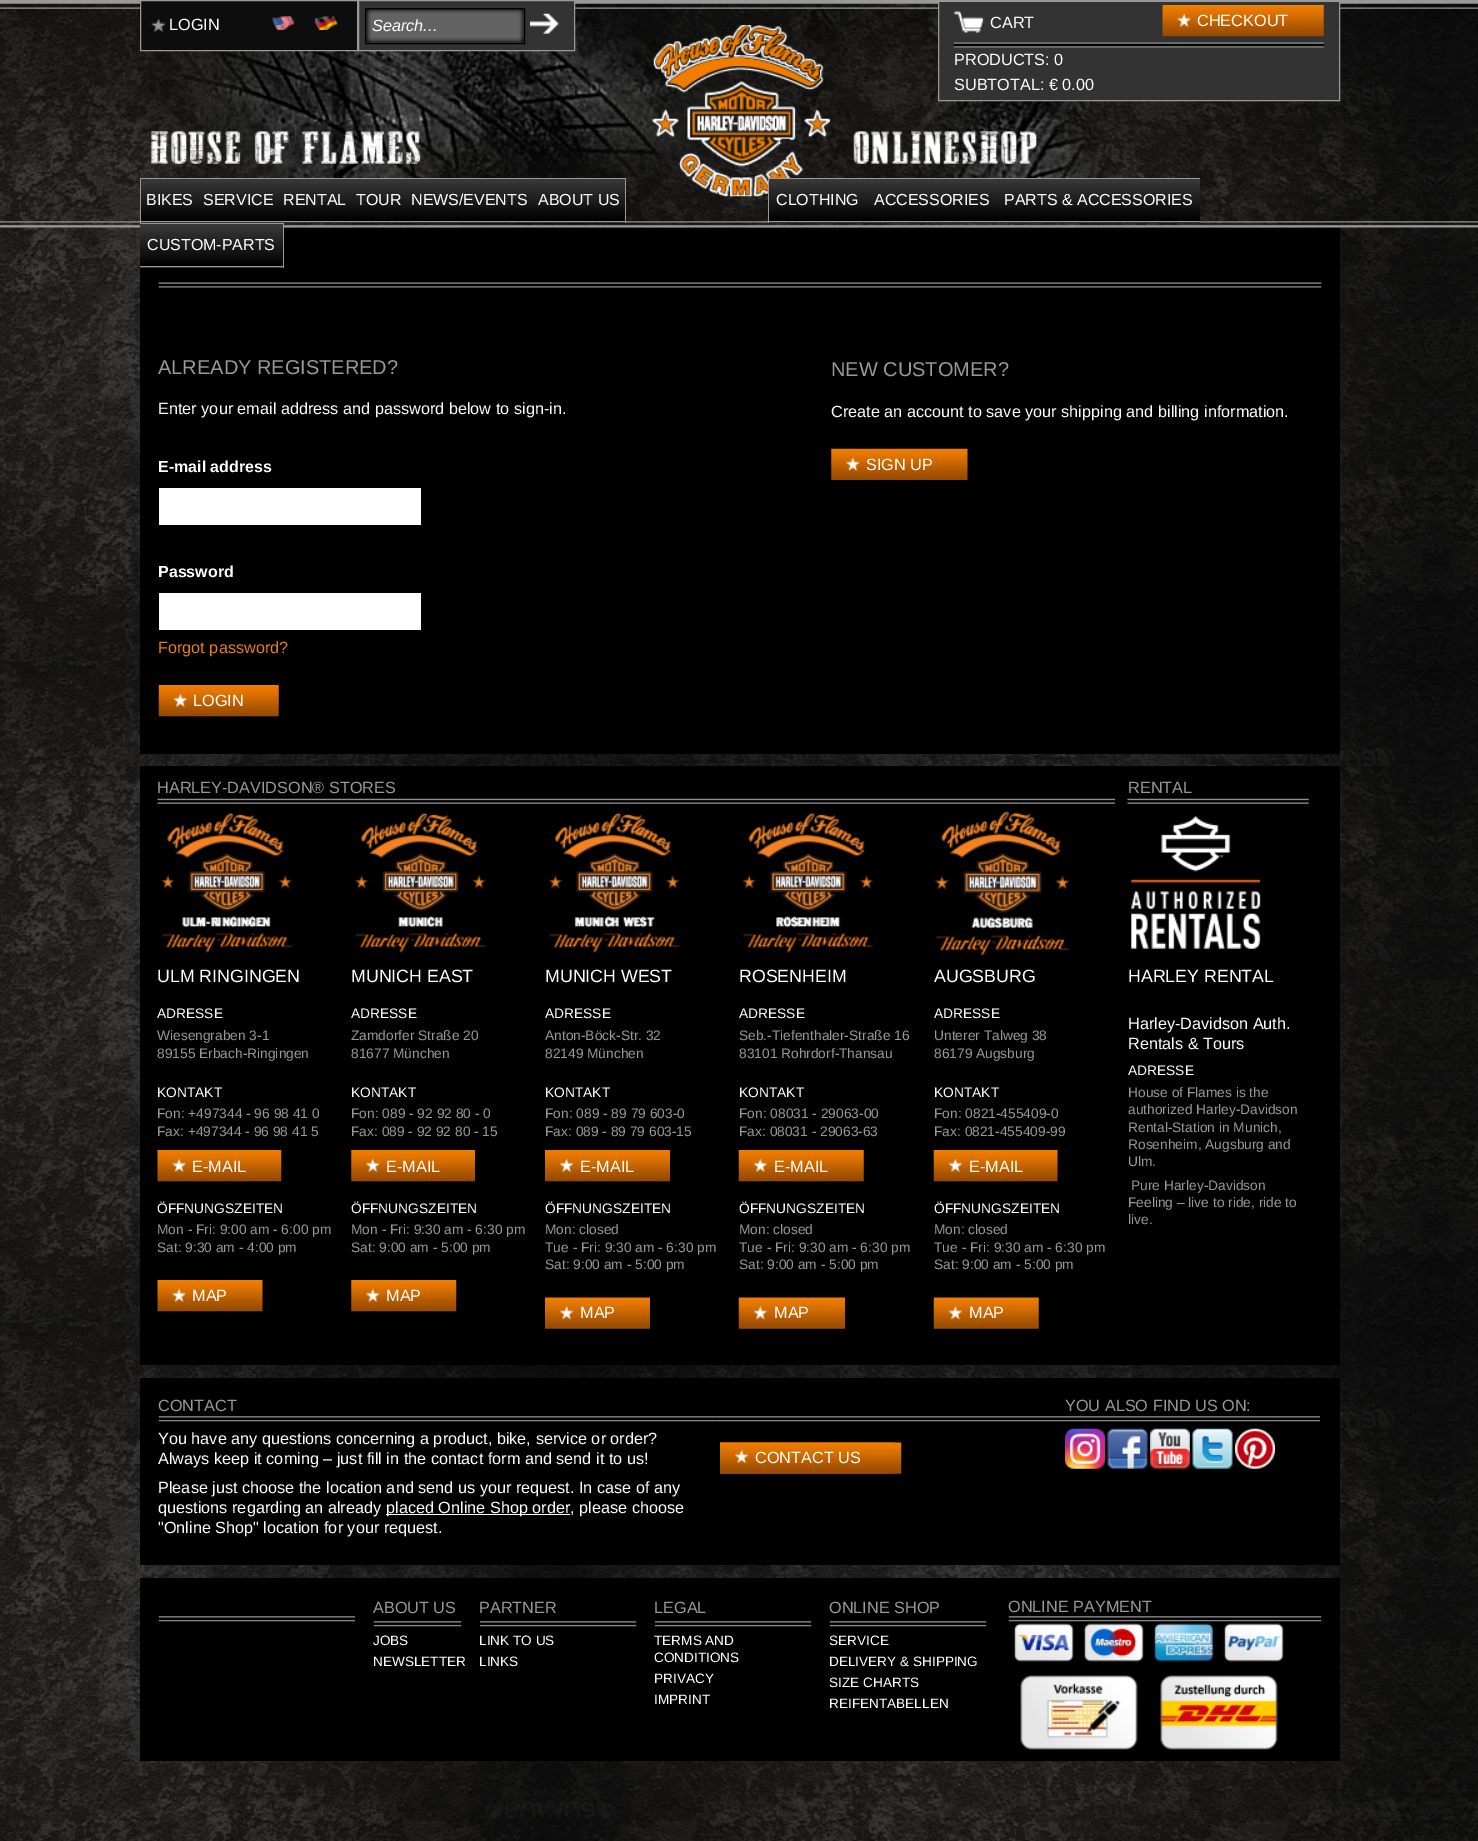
%!PS-Adobe-3.0
%%BoundingBox: 0 0 1478 1841
%%LanguageLevel: 3
%%Pages: 1
%%EndComments
%%BeginProlog
/setink { dup -16 bitshift 255 div exch dup -8 bitshift 255 and 255 div exch 255 and 255 div setrgbcolor } def
/usefont { [ exch dup neg 0 0 3 -1 roll 0 0 ] selectfont } def
/drawimage { 5 dict begin { /h /w /y /x /name } { exch def } forall
  gsave x y translate w h scale
  w h 8 [w 0 0 h 0 0] name (r) file false 3 colorimage grestore end } def
%%EndProlog
%%BeginSetup
<< /PageSize [1478 1841] >> setpagedevice
%%EndSetup
%%Page: 1 1
0 1841 translate 1 -1 scale
4 setmiterlimit
16#FFFFFF setink
0 0 1478 1841 rectfill
(img1.raw) 0 3 1478 1838 drawimage
(img2.raw) 0 0 1478 228 drawimage
(img3.raw) 151 131 886 33 drawimage
16#0D0D0D setink
140.5 0.5 moveto 357.5 0.5 lineto 357.5 50.5 lineto 140.5 50.5 lineto closepath gsave fill grestore
16#999999 setink
stroke
(img4.raw) 151 18 15 15 drawimage
/LiberationSans-Regular 16.25 usefont
16#FFFFFF setink
169 30 moveto (LOGIN) show
(img5.raw) 272 16 23 14 drawimage
(img6.raw) 314 16 24 14 drawimage
16#333333 setink
358.5 0.5 moveto 574.5 0.5 lineto 574.5 50.5 lineto 358.5 50.5 lineto closepath gsave fill grestore
16#999999 setink
stroke
(img7.raw) 366 9 158 34 drawimage
16#000000 setink
365.5 8.5 159 35 rectstroke
/LiberationSans-Italic 16.25 usefont
16#FFFFFF setink
372 31 moveto (Search...) show
(img8.raw) 530 13 29 21 drawimage
16#333333 setink
939 2 400 98 rectfill
16#999999 setink
938.5 0.5 401 100 rectstroke
(img9.raw) 953 42 371 6 drawimage
(img10.raw) 953 11 31 22 drawimage
/LiberationSans-Regular 16.25 usefont
16#FFFFFF setink
990 28 moveto (CART) show
(img11.raw) 1162 5 162 32 drawimage
(img12.raw) 1177 13 14 15 drawimage
[
    [(CHECKOUT) 1197 26]
    [(PRODUCTS: 0) 954 65]
    [(SUBTOTAL: € 0.00) 954 90]
] { aload pop moveto show } forall
(img13.raw) 652 25 178 172 drawimage
gsave 141 179 moveto 198 179 lineto 198 221 lineto 141 221 lineto closepath clip newpath
<< /ShadingType 2 /ColorSpace /DeviceRGB /Coords [169 179 169 221] /Extend [true true] /Function << /FunctionType 2 /Domain [0 1] /C0 [0.227 0.227 0.227] /C1 [0 0 0] /N 1 >> >> shfill grestore
gsave 140 222 moveto 198 222 lineto 198 223 lineto 140 223 lineto closepath clip newpath
<< /ShadingType 2 /ColorSpace /DeviceRGB /Coords [169 221 169 264] /Extend [true true] /Function << /FunctionType 2 /Domain [0 1] /C0 [0.227 0.227 0.227] /C1 [0 0 0] /N 1 >> >> shfill grestore
[
    [140 178 486 1 16#999999]
    [140 221 393 1 16#999999]
    [140 178 1 45 16#999999]
] { aload pop setink rectfill } forall
/LiberationSans-Regular 16 usefont
16#FFFFFF setink
146 205 moveto (BIKES) show
gsave 198 179 moveto 278 179 lineto 278 221 lineto 198 221 lineto closepath clip newpath
<< /ShadingType 2 /ColorSpace /DeviceRGB /Coords [238 179 238 221] /Extend [true true] /Function << /FunctionType 2 /Domain [0 1] /C0 [0.227 0.227 0.227] /C1 [0 0 0] /N 1 >> >> shfill grestore
gsave 198 222 moveto 278 222 lineto 278 223 lineto 198 223 lineto closepath clip newpath
<< /ShadingType 2 /ColorSpace /DeviceRGB /Coords [238 221 238 264] /Extend [true true] /Function << /FunctionType 2 /Domain [0 1] /C0 [0.227 0.227 0.227] /C1 [0 0 0] /N 1 >> >> shfill grestore
203 205 moveto (SERVICE) show
gsave 278 179 moveto 351 179 lineto 351 221 lineto 278 221 lineto closepath clip newpath
<< /ShadingType 2 /ColorSpace /DeviceRGB /Coords [314 179 314 221] /Extend [true true] /Function << /FunctionType 2 /Domain [0 1] /C0 [0.227 0.227 0.227] /C1 [0 0 0] /N 1 >> >> shfill grestore
gsave 278 222 moveto 351 222 lineto 351 223 lineto 278 223 lineto closepath clip newpath
<< /ShadingType 2 /ColorSpace /DeviceRGB /Coords [314 221 314 264] /Extend [true true] /Function << /FunctionType 2 /Domain [0 1] /C0 [0.227 0.227 0.227] /C1 [0 0 0] /N 1 >> >> shfill grestore
283 205 moveto (RENTAL) show
gsave 351 179 moveto 406 179 lineto 406 221 lineto 351 221 lineto closepath clip newpath
<< /ShadingType 2 /ColorSpace /DeviceRGB /Coords [379 179 379 221] /Extend [true true] /Function << /FunctionType 2 /Domain [0 1] /C0 [0.227 0.227 0.227] /C1 [0 0 0] /N 1 >> >> shfill grestore
gsave 351 222 moveto 406 222 lineto 406 223 lineto 351 223 lineto closepath clip newpath
<< /ShadingType 2 /ColorSpace /DeviceRGB /Coords [379 221 379 264] /Extend [true true] /Function << /FunctionType 2 /Domain [0 1] /C0 [0.227 0.227 0.227] /C1 [0 0 0] /N 1 >> >> shfill grestore
356 205 moveto (TOUR) show
gsave 406 179 moveto 533 179 lineto 533 221 lineto 406 221 lineto closepath clip newpath
<< /ShadingType 2 /ColorSpace /DeviceRGB /Coords [469 179 469 221] /Extend [true true] /Function << /FunctionType 2 /Domain [0 1] /C0 [0.227 0.227 0.227] /C1 [0 0 0] /N 1 >> >> shfill grestore
gsave 406 222 moveto 533 222 lineto 533 223 lineto 406 223 lineto closepath clip newpath
<< /ShadingType 2 /ColorSpace /DeviceRGB /Coords [469 221 469 264] /Extend [true true] /Function << /FunctionType 2 /Domain [0 1] /C0 [0.227 0.227 0.227] /C1 [0 0 0] /N 1 >> >> shfill grestore
411 205 moveto (NEWS/EVENTS) show
gsave 533 179 moveto 625 179 lineto 625 221 lineto 533 221 lineto closepath clip newpath
<< /ShadingType 2 /ColorSpace /DeviceRGB /Coords [579 179 579 221] /Extend [true true] /Function << /FunctionType 2 /Domain [0 1] /C0 [0.227 0.227 0.227] /C1 [0 0 0] /N 1 >> >> shfill grestore
gsave 533 222 moveto 626 222 lineto 626 223 lineto 533 223 lineto closepath clip newpath
<< /ShadingType 2 /ColorSpace /DeviceRGB /Coords [579 221 579 264] /Extend [true true] /Function << /FunctionType 2 /Domain [0 1] /C0 [0.227 0.227 0.227] /C1 [0 0 0] /N 1 >> >> shfill grestore
16#999999 setink
625 178 1 45 rectfill
533 221 93 1 rectfill
16#FFFFFF setink
538 205 moveto (ABOUT US) show
gsave 769 179 moveto 866 179 lineto 866 221 lineto 769 221 lineto closepath clip newpath
<< /ShadingType 2 /ColorSpace /DeviceRGB /Coords [818 179 818 221] /Extend [true true] /Function << /FunctionType 2 /Domain [0 1] /C0 [0.227 0.227 0.227] /C1 [0 0 0] /N 1 >> >> shfill grestore
gsave 768 222 moveto 866 222 lineto 866 223 lineto 768 223 lineto closepath clip newpath
<< /ShadingType 2 /ColorSpace /DeviceRGB /Coords [818 221 818 264] /Extend [true true] /Function << /FunctionType 2 /Domain [0 1] /C0 [0.227 0.227 0.227] /C1 [0 0 0] /N 1 >> >> shfill grestore
[
    [768 178 432 1 16#999999]
    [768 221 432 1 16#999999]
    [768 178 1 45 16#999999]
] { aload pop setink rectfill } forall
16#FFFFFF setink
776 205 moveto (CLOTHING) show
gsave 866 179 moveto 996 179 lineto 996 221 lineto 866 221 lineto closepath clip newpath
<< /ShadingType 2 /ColorSpace /DeviceRGB /Coords [931 179 931 221] /Extend [true true] /Function << /FunctionType 2 /Domain [0 1] /C0 [0.227 0.227 0.227] /C1 [0 0 0] /N 1 >> >> shfill grestore
gsave 866 222 moveto 996 222 lineto 996 223 lineto 866 223 lineto closepath clip newpath
<< /ShadingType 2 /ColorSpace /DeviceRGB /Coords [931 221 931 264] /Extend [true true] /Function << /FunctionType 2 /Domain [0 1] /C0 [0.227 0.227 0.227] /C1 [0 0 0] /N 1 >> >> shfill grestore
874 205 moveto (ACCESSORIES) show
gsave 996 179 moveto 1200 179 lineto 1200 221 lineto 996 221 lineto closepath clip newpath
<< /ShadingType 2 /ColorSpace /DeviceRGB /Coords [1098 179 1098 221] /Extend [true true] /Function << /FunctionType 2 /Domain [0 1] /C0 [0.227 0.227 0.227] /C1 [0 0 0] /N 1 >> >> shfill grestore
gsave 996 222 moveto 1200 222 lineto 1200 223 lineto 996 223 lineto closepath clip newpath
<< /ShadingType 2 /ColorSpace /DeviceRGB /Coords [1098 221 1098 264] /Extend [true true] /Function << /FunctionType 2 /Domain [0 1] /C0 [0.227 0.227 0.227] /C1 [0 0 0] /N 1 >> >> shfill grestore
1004 205 moveto (PARTS & ACCESSORIES) show
16#000000 setink
140 228 1200 526 rectfill
gsave 140 224 moveto 283 224 lineto 283 264 lineto 140 264 lineto closepath clip newpath
<< /ShadingType 2 /ColorSpace /DeviceRGB /Coords [211 224 211 266] /Extend [true true] /Function << /FunctionType 2 /Domain [0 1] /C0 [0.227 0.227 0.227] /C1 [0 0 0] /N 1 >> >> shfill grestore
gsave 140 267 moveto 284 267 lineto 284 268 lineto 140 268 lineto closepath clip newpath
<< /ShadingType 2 /ColorSpace /DeviceRGB /Coords [211 266 211 309] /Extend [true true] /Function << /FunctionType 2 /Domain [0 1] /C0 [0.227 0.227 0.227] /C1 [0 0 0] /N 1 >> >> shfill grestore
[
    [140 223 144 1 16#999999]
    [283 223 1 45 16#999999]
    [140 266 144 1 16#999999]
] { aload pop setink rectfill } forall
16#FFFFFF setink
147 250 moveto (CUSTOM-PARTS) show
(img14.raw) 158 282 1164 6 drawimage
/LiberationSans-Regular 20 usefont
16#999999 setink
158 374 moveto (ALREADY REGISTERED?) show
/LiberationSans-Regular 16.25 usefont
16#FFFFFF setink
158 414 moveto (Enter your email address and password below to sign-in.) show
/LiberationSans-Bold 16 usefont
158 472 moveto (E-mail address) show
159 488 262 37 rectfill
158 577 moveto (Password) show
159 593 262 37 rectfill
/LiberationSans-Regular 16.25 usefont
16#E77D1F setink
158 653 moveto (Forgot password?) show
(img15.raw) 158 685 121 32 drawimage
(img16.raw) 173 693 15 15 drawimage
16#FFFFFF setink
193 706 moveto (LOGIN) show
/LiberationSans-Regular 20 usefont
16#999999 setink
831 376 moveto (NEW CUSTOMER?) show
/LiberationSans-Regular 16.25 usefont
16#FFFFFF setink
831 417 moveto (Create an account to save your shipping and billing information.) show
(img17.raw) 831 448 137 32 drawimage
(img18.raw) 846 457 14 15 drawimage
866 470 moveto (SIGN UP) show
16#000000 setink
140 766 1200 599 rectfill
(img19.raw) 157 798 958 6 drawimage
16#999999 setink
157 793 moveto (HARLEY-DAVIDSON® STORES) show
(img20.raw) 161 813 132 140 drawimage
/LiberationSans-Regular 17.75 usefont
16#FFFFFF setink
157 982 moveto (ULM RINGINGEN) show
/LiberationSans-Regular 13.75 usefont
157 1018 moveto (ADRESSE) show
16#999999 setink
157 1040 moveto (Wiesengraben 3-1) show
157 1058 moveto (89155 Erbach-Ringingen) show
16#FFFFFF setink
157 1097 moveto (KONTAKT) show
16#999999 setink
157 1118 moveto (Fon: +497344 - 96 98 41 0) show
157 1136 moveto (Fax: +497344 - 96 98 41 5) show
(img21.raw) 157 1150 125 32 drawimage
(img12.raw) 172 1158 14 15 drawimage
/LiberationSans-Regular 16.25 usefont
16#FFFFFF setink
192 1172 moveto (E-MAIL) show
/LiberationSans-Regular 13.75 usefont
157 1213 moveto (ÖFFNUNGSZEITEN) show
16#999999 setink
157 1234 moveto (Mon - Fri: 9:00 am - 6:00 pm) show
157 1252 moveto (Sat: 9:30 am - 4:00 pm) show
(img22.raw) 157 1280 106 32 drawimage
(img12.raw) 172 1288 14 15 drawimage
/LiberationSans-Regular 16.25 usefont
16#FFFFFF setink
192 1301 moveto (MAP) show
(img23.raw) 354 812 133 141 drawimage
/LiberationSans-Regular 17.75 usefont
351 982 moveto (MUNICH EAST) show
/LiberationSans-Regular 13.75 usefont
351 1018 moveto (ADRESSE) show
16#999999 setink
351 1040 moveto (Zamdorfer Straße 20) show
351 1058 moveto (81677 München) show
16#FFFFFF setink
351 1097 moveto (KONTAKT) show
16#999999 setink
351 1118 moveto (Fon: 089 - 92 92 80 - 0) show
351 1136 moveto (Fax: 089 - 92 92 80 - 15) show
(img24.raw) 351 1150 124 32 drawimage
(img25.raw) 366 1158 14 15 drawimage
/LiberationSans-Regular 16.25 usefont
16#FFFFFF setink
386 1172 moveto (E-MAIL) show
/LiberationSans-Regular 13.75 usefont
351 1213 moveto (ÖFFNUNGSZEITEN) show
16#999999 setink
351 1234 moveto (Mon - Fri: 9:30 am - 6:30 pm) show
351 1252 moveto (Sat: 9:00 am - 5:00 pm) show
(img26.raw) 351 1280 106 32 drawimage
(img25.raw) 366 1288 14 15 drawimage
/LiberationSans-Regular 16.25 usefont
16#FFFFFF setink
386 1301 moveto (MAP) show
(img27.raw) 548 812 132 141 drawimage
/LiberationSans-Regular 17.75 usefont
545 982 moveto (MUNICH WEST) show
/LiberationSans-Regular 13.75 usefont
545 1018 moveto (ADRESSE) show
16#999999 setink
545 1040 moveto (Anton-Böck-Str. 32) show
545 1058 moveto (82149 München) show
16#FFFFFF setink
545 1097 moveto (KONTAKT) show
16#999999 setink
545 1118 moveto (Fon: 089 - 89 79 603-0) show
545 1136 moveto (Fax: 089 - 89 79 603-15) show
(img28.raw) 545 1150 125 32 drawimage
(img29.raw) 560 1158 14 15 drawimage
/LiberationSans-Regular 16.25 usefont
16#FFFFFF setink
580 1172 moveto (E-MAIL) show
/LiberationSans-Regular 13.75 usefont
545 1213 moveto (ÖFFNUNGSZEITEN) show
16#999999 setink
[
    [(Mon: closed) 545 1234]
    [(Tue - Fri: 9:30 am - 6:30 pm) 545 1252]
    [(Sat: 9:00 am - 5:00 pm) 545 1269]
] { aload pop moveto show } forall
(img30.raw) 545 1297 105 32 drawimage
(img31.raw) 560 1306 14 14 drawimage
/LiberationSans-Regular 16.25 usefont
16#FFFFFF setink
580 1318 moveto (MAP) show
(img32.raw) 742 812 132 141 drawimage
/LiberationSans-Regular 17.75 usefont
739 982 moveto (ROSENHEIM) show
/LiberationSans-Regular 13.75 usefont
739 1018 moveto (ADRESSE) show
16#999999 setink
739 1040 moveto (Seb.-Tiefenthaler-Straße 16) show
739 1058 moveto (83101 Rohrdorf-Thansau) show
16#FFFFFF setink
739 1097 moveto (KONTAKT) show
16#999999 setink
739 1118 moveto (Fon: 08031 - 29063-00) show
739 1136 moveto (Fax: 08031 - 29063-63) show
(img33.raw) 738 1150 126 32 drawimage
(img34.raw) 753 1158 15 15 drawimage
/LiberationSans-Regular 16.25 usefont
16#FFFFFF setink
774 1172 moveto (E-MAIL) show
/LiberationSans-Regular 13.75 usefont
739 1213 moveto (ÖFFNUNGSZEITEN) show
16#999999 setink
[
    [(Mon: closed) 739 1234]
    [(Tue - Fri: 9:30 am - 6:30 pm) 739 1252]
    [(Sat: 9:00 am - 5:00 pm) 739 1269]
] { aload pop moveto show } forall
(img35.raw) 738 1297 107 32 drawimage
(img36.raw) 753 1306 15 14 drawimage
/LiberationSans-Regular 16.25 usefont
16#FFFFFF setink
774 1318 moveto (MAP) show
(img37.raw) 935 811 135 145 drawimage
/LiberationSans-Regular 17.75 usefont
934 982 moveto (AUGSBURG) show
/LiberationSans-Regular 13.75 usefont
934 1018 moveto (ADRESSE) show
16#999999 setink
934 1040 moveto (Unterer Talweg 38) show
934 1058 moveto (86179 Augsburg) show
16#FFFFFF setink
934 1097 moveto (KONTAKT) show
16#999999 setink
934 1118 moveto (Fon: 0821-455409-0) show
934 1136 moveto (Fax: 0821-455409-99) show
(img38.raw) 933 1150 125 32 drawimage
(img34.raw) 948 1158 15 15 drawimage
/LiberationSans-Regular 16.25 usefont
16#FFFFFF setink
969 1172 moveto (E-MAIL) show
/LiberationSans-Regular 13.75 usefont
934 1213 moveto (ÖFFNUNGSZEITEN) show
16#999999 setink
[
    [(Mon: closed) 934 1234]
    [(Tue - Fri: 9:30 am - 6:30 pm) 934 1252]
    [(Sat: 9:00 am - 5:00 pm) 934 1269]
] { aload pop moveto show } forall
(img39.raw) 933 1297 106 32 drawimage
(img36.raw) 948 1306 15 14 drawimage
/LiberationSans-Regular 16.25 usefont
16#FFFFFF setink
969 1318 moveto (MAP) show
(img40.raw) 1127 798 182 6 drawimage
16#999999 setink
1128 793 moveto (RENTAL) show
(img41.raw) 1131 816 130 133 drawimage
/LiberationSans-Regular 17.75 usefont
16#FFFFFF setink
1128 982 moveto (HARLEY RENTAL) show
/LiberationSans-Regular 16.25 usefont
1128 1029 moveto (Harley-Davidson Auth.) show
1128 1049 moveto (Rentals & Tours) show
/LiberationSans-Regular 13.75 usefont
1128 1075 moveto (ADRESSE) show
16#999999 setink
[
    [(House of Flames is the) 1128 1097]
    [(authorized Harley-Davidson) 1128 1114]
    [(Rental-Station in Munich,) 1128 1132]
    [(Rosenheim, Augsburg and) 1128 1149]
    [(Ulm.) 1128 1166]
    [(Pure Harley-Davidson) 1131 1190]
    [(Feeling – live to ride, ride to) 1128 1207]
    [(live.) 1128 1224]
] { aload pop moveto show } forall
16#000000 setink
140 1378 1200 187 rectfill
(img42.raw) 158 1416 559 6 drawimage
/LiberationSans-Regular 16.25 usefont
16#999999 setink
158 1411 moveto (CONTACT) show
16#FFFFFF setink
[
    [(You have any questions concerning a product, bike, service or order?) 158 1444]
    [(Always keep it coming – just fill in the contact form and send it to us!) 158 1464]
    [(Please just choose the location and send us your request. In case of any) 158 1493]
    [(questions regarding an already) 158 1513]
] { aload pop moveto show } forall
386 1514 184 1 rectfill
386 1513 moveto (placed Online Shop order, please choose) show
158 1533 moveto ("Online Shop" location for your request.) show
(img43.raw) 1065 1416 255 6 drawimage
16#999999 setink
1065 1411 moveto (YOU ALSO FIND US ON:) show
(img44.raw) 1065 1428 40 41 drawimage
(img45.raw) 1107 1428 41 41 drawimage
(img46.raw) 1150 1428 40 41 drawimage
(img47.raw) 1192 1428 41 41 drawimage
(img48.raw) 1235 1428 40 41 drawimage
(img49.raw) 716 1416 349 6 drawimage
(img50.raw) 720 1442 182 32 drawimage
(img51.raw) 720 1442 175 32 drawimage
(img52.raw) 735 1450 14 14 drawimage
16#FFFFFF setink
755 1463 moveto (CONTACT US) show
16#000000 setink
140 1578 1200 183 rectfill
(img53.raw) 158 1616 197 6 drawimage
(img54.raw) 373 1621 89 6 drawimage
16#999999 setink
373 1613 moveto (ABOUT US) show
/LiberationSans-Regular 13.6 usefont
16#FFFFFF setink
373 1645 moveto (JOBS) show
373 1666 moveto (NEWSLETTER) show
(img55.raw) 480 1621 157 6 drawimage
/LiberationSans-Regular 16.25 usefont
16#999999 setink
479 1613 moveto (PARTNER) show
/LiberationSans-Regular 13.6 usefont
16#FFFFFF setink
479 1645 moveto (LINK TO US) show
479 1666 moveto (LINKS) show
(img55.raw) 655 1621 157 6 drawimage
/LiberationSans-Regular 16.25 usefont
16#999999 setink
654 1613 moveto (LEGAL) show
/LiberationSans-Regular 13.6 usefont
16#FFFFFF setink
[
    [(TERMS AND) 654 1645]
    [(CONDITIONS) 654 1662]
    [(PRIVACY) 654 1683]
    [(IMPRINT) 654 1704]
] { aload pop moveto show } forall
(img55.raw) 830 1621 157 6 drawimage
/LiberationSans-Regular 16.25 usefont
16#999999 setink
829 1613 moveto (ONLINE SHOP) show
/LiberationSans-Regular 13.6 usefont
16#FFFFFF setink
[
    [(SERVICE) 829 1645]
    [(DELIVERY & SHIPPING) 829 1666]
    [(SIZE CHARTS) 829 1687]
    [(REIFENTABELLEN) 829 1708]
] { aload pop moveto show } forall
(img56.raw) 1008 1616 314 6 drawimage
/LiberationSans-Regular 16.25 usefont
16#999999 setink
1008 1612 moveto (ONLINE PAYMENT) show
(img57.raw) 1013 1623 61 39 drawimage
(img58.raw) 1083 1623 61 39 drawimage
(img59.raw) 1153 1623 61 39 drawimage
(img60.raw) 1223 1623 61 39 drawimage
(img61.raw) 1020 1675 118 76 drawimage
(img62.raw) 1160 1675 118 76 drawimage
showpage
%%EOF
